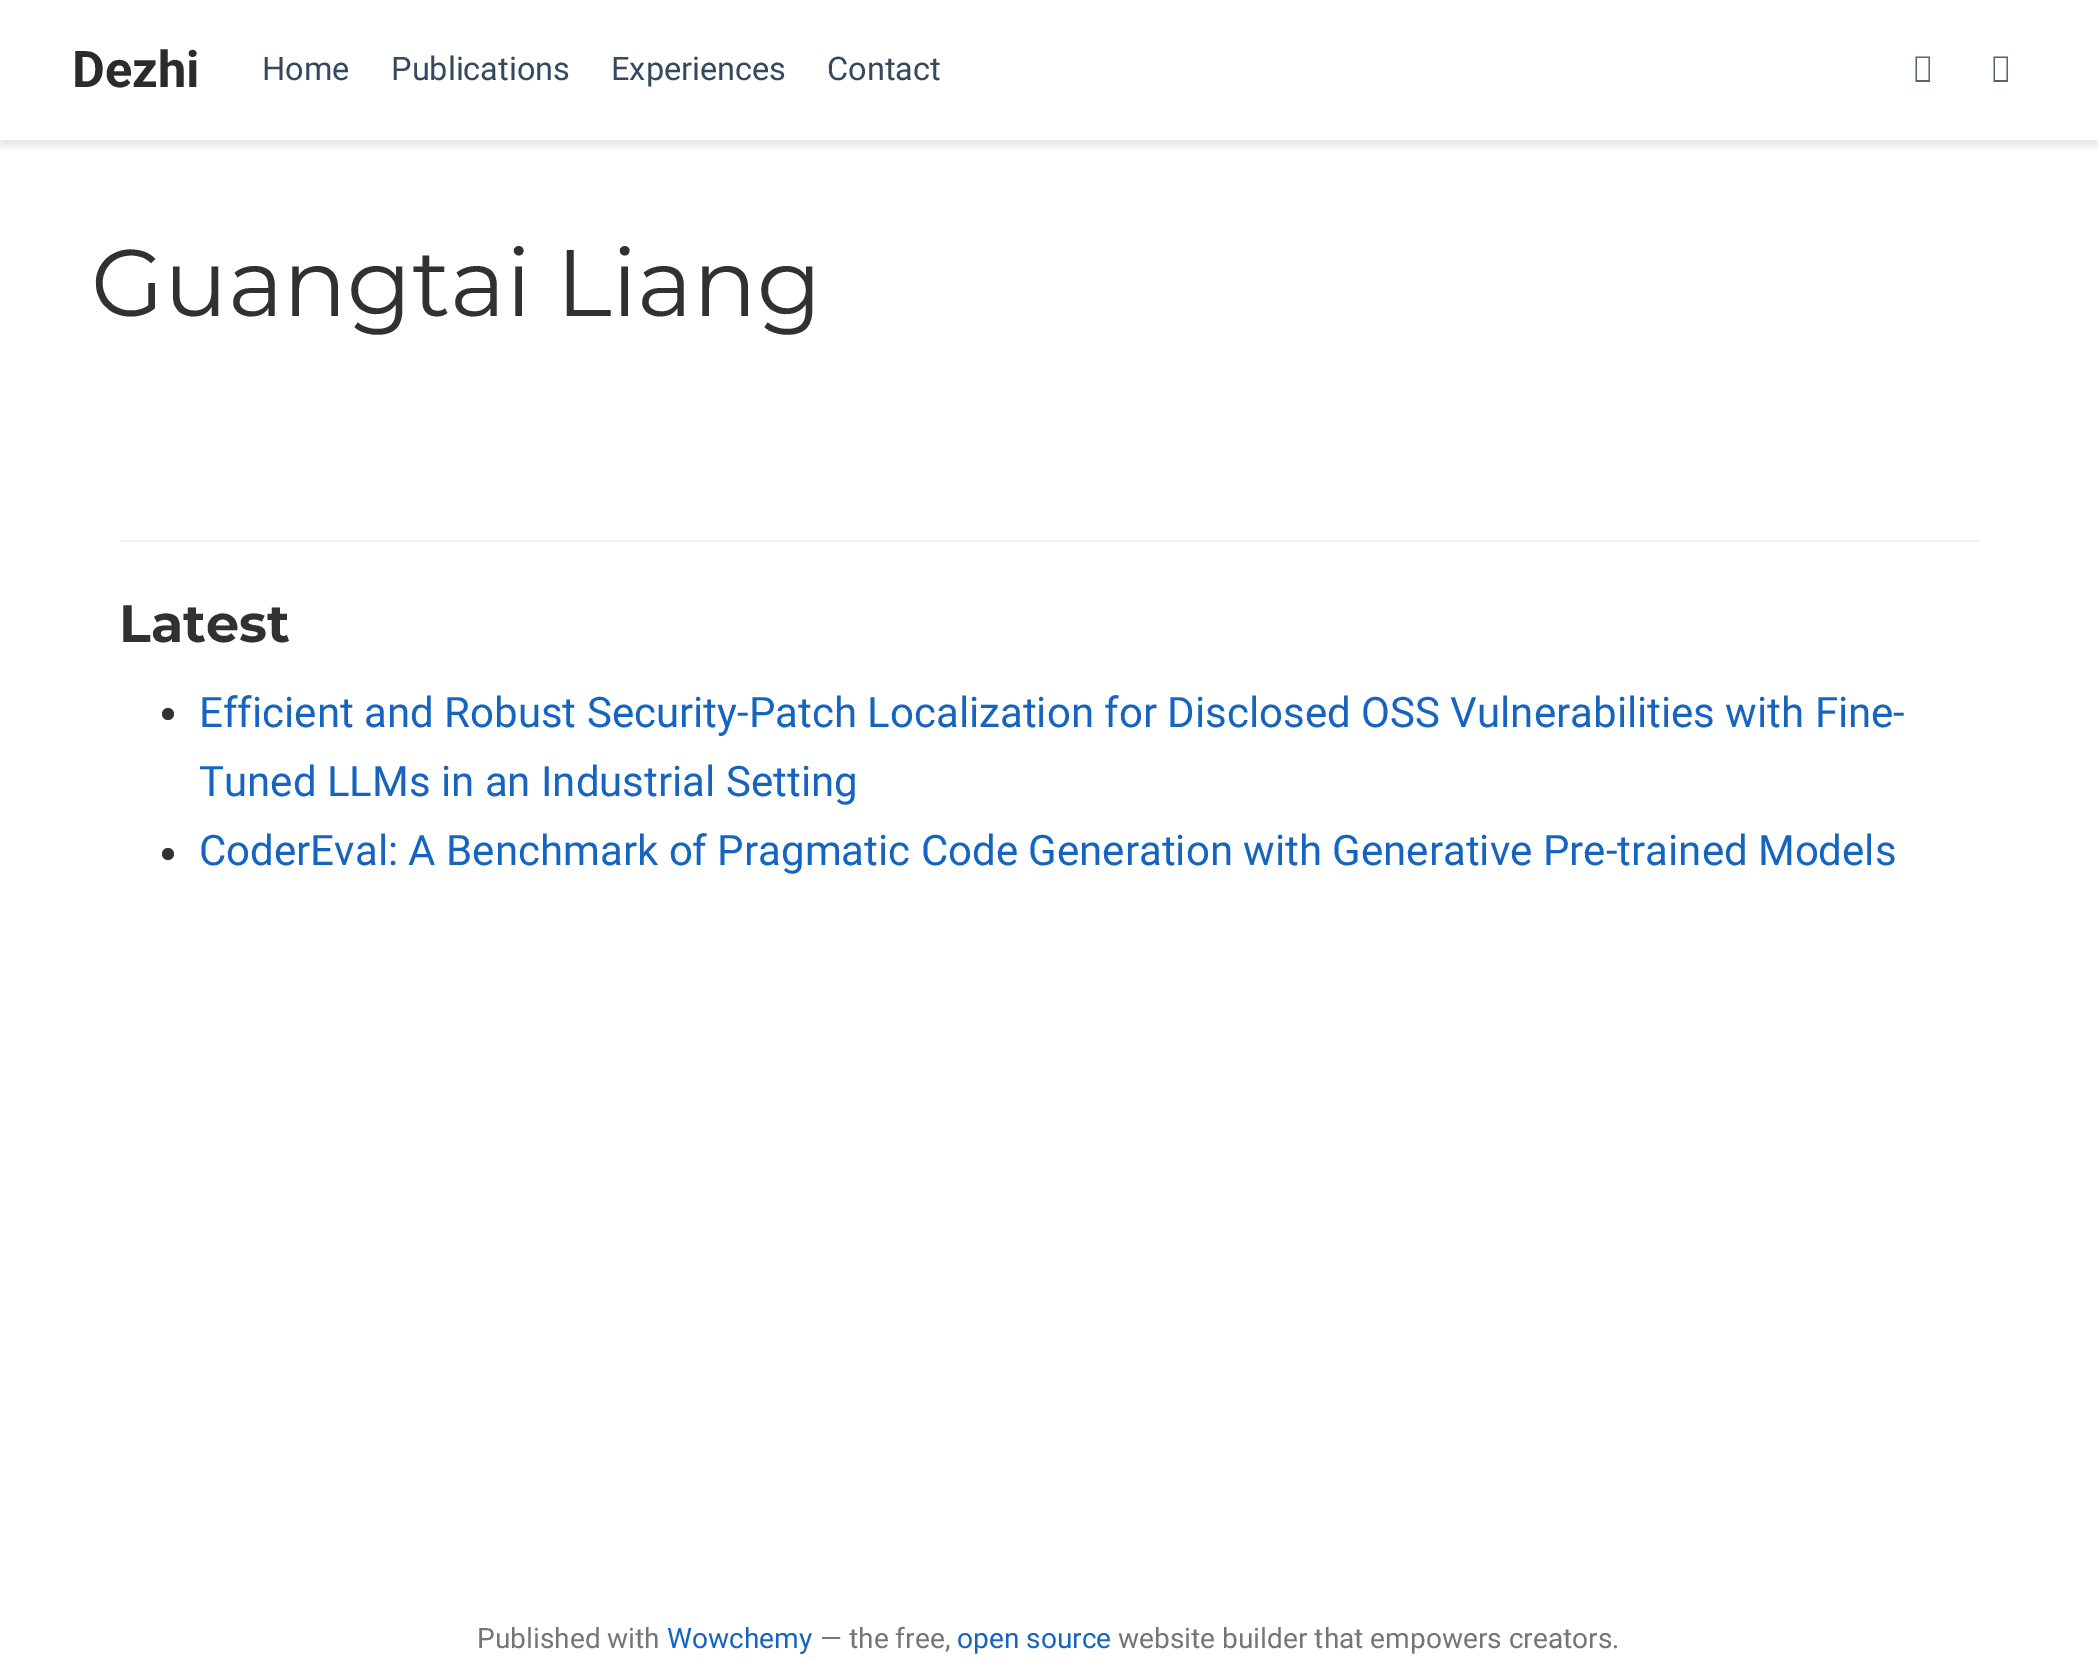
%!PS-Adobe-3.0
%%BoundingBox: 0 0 2098 1661
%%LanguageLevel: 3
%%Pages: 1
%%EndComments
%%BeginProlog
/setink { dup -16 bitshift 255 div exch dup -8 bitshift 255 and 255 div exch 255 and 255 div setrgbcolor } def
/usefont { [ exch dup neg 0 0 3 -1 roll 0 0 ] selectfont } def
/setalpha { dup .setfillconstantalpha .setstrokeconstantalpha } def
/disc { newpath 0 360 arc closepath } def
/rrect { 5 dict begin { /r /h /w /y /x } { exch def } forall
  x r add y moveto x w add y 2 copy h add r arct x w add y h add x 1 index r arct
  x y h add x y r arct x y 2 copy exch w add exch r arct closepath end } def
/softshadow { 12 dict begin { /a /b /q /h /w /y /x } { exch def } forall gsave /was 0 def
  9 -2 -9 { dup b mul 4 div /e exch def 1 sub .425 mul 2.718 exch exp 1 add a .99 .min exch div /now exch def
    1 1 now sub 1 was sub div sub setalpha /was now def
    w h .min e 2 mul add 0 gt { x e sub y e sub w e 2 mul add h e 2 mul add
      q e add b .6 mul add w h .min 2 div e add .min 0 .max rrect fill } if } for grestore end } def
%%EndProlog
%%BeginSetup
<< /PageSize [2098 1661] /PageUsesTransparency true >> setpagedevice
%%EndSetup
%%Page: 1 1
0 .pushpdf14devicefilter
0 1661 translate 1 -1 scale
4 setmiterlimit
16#FFFFFF setink
0 0 2098 1661 rectfill
gsave
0 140 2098 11 rectclip
16#000000 setink
0 6 2098 140 0 5 0.11 softshadow
grestore
/Roboto-Bold 50.5 usefont
16#2B2B2B setink
72 87 moveto (Dezhi) show
/Roboto-Regular 32.5 usefont
16#34495E setink
[
    [(Home) 262 80]
    [(Publications) 391 80]
    [(Experiences) 611 80]
    [(Contact) 827 80]
] { aload pop moveto show } forall
16#526476 setink
1915.5 82 moveto 1915.5 56.5 lineto 1930 56.5 lineto 1930 82 lineto closepath 1917 80 moveto 1928.5 80 lineto 1928.5 58 lineto 1917 58 lineto closepath fill
1993.5 82 moveto 1993.5 56.5 lineto 2008 56.5 lineto 2008 82 lineto closepath 1995 80 moveto 2006.5 80 lineto 2006.5 58 lineto 1995 58 lineto closepath fill
/Montserrat-Regular 94.5 usefont
16#313131 setink
91 316 moveto (Guangtai Liang) show
16#F2F2F2 setink
120 540 1860 2 rectfill
/Montserrat-Bold 52.5 usefont
16#313131 setink
119 642 moveto (Latest) show
16#333333 setink
168 714 6 disc fill
/Roboto-Regular 42 usefont
16#1565C0 setink
199 727 moveto (Efficient and Robust Security-Patch Localization for Disclosed OSS Vulnerabilities with Fine-) show
199 796 moveto (Tuned LLMs in an Industrial Setting) show
16#333333 setink
168 854 6 disc fill
16#1565C0 setink
199 865 moveto (CoderEval: A Benchmark of Pragmatic Code Generation with Generative Pre-trained Models) show
/Roboto-Regular 28.1 usefont
16#757575 setink
477 1648 moveto (Published with) show
16#1565C0 setink
667 1648 moveto (Wowchemy) show
16#757575 setink
820 1648 moveto (— the free,) show
16#1565C0 setink
957 1648 moveto (open source) show
16#757575 setink
1118 1648 moveto (website builder that empowers creators.) show
.poppdf14devicefilter showpage
%%EOF
